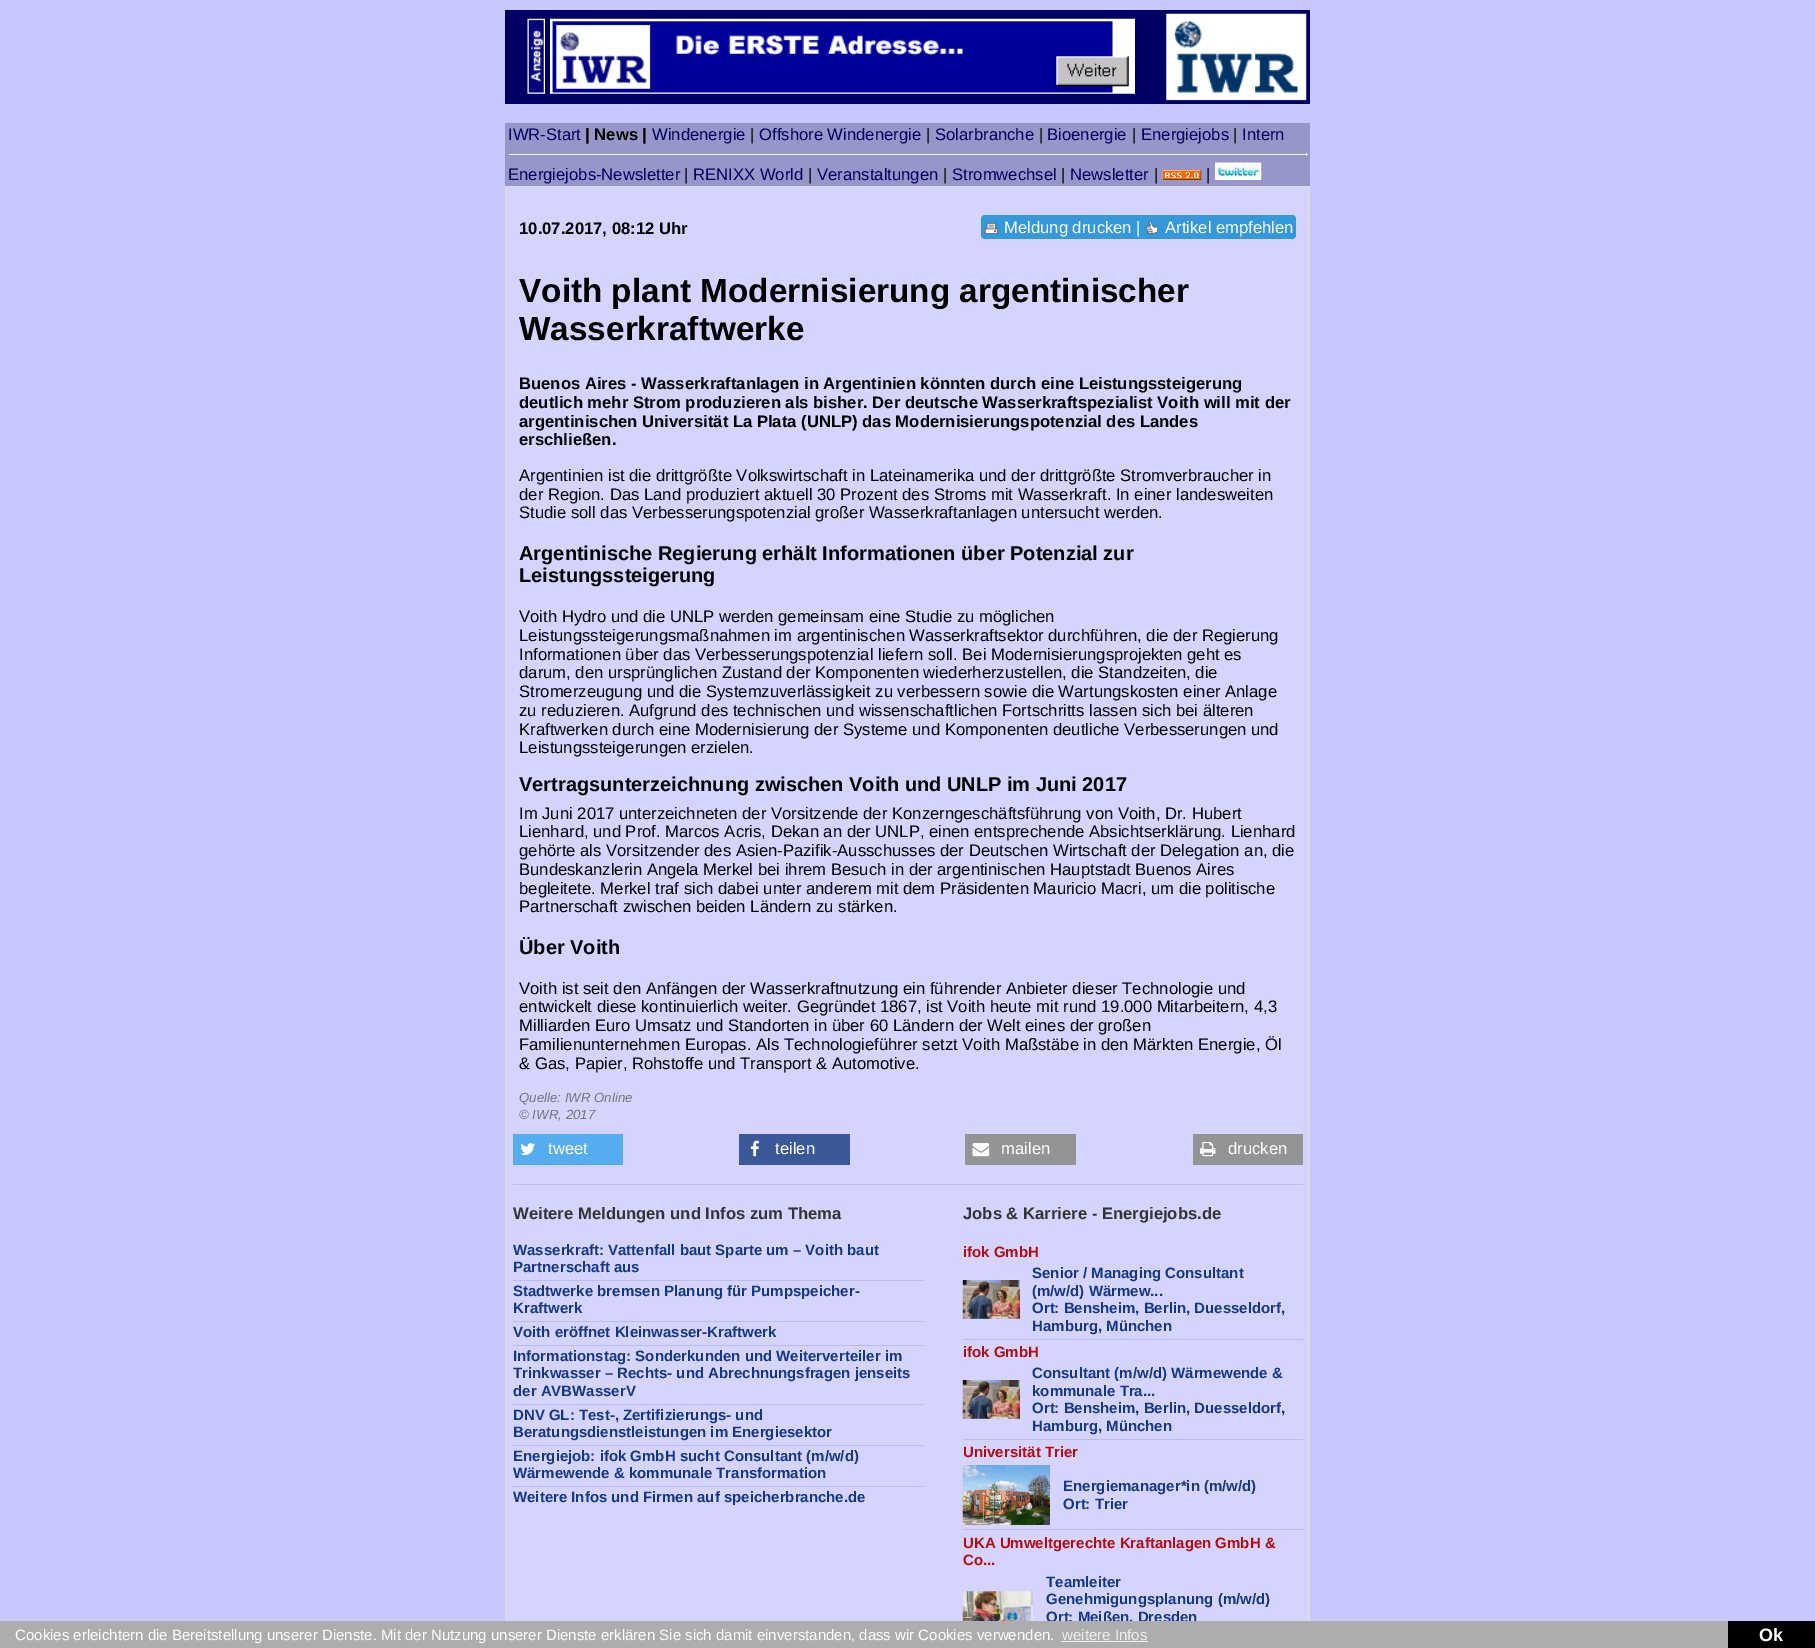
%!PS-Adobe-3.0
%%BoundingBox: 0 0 1815 1648
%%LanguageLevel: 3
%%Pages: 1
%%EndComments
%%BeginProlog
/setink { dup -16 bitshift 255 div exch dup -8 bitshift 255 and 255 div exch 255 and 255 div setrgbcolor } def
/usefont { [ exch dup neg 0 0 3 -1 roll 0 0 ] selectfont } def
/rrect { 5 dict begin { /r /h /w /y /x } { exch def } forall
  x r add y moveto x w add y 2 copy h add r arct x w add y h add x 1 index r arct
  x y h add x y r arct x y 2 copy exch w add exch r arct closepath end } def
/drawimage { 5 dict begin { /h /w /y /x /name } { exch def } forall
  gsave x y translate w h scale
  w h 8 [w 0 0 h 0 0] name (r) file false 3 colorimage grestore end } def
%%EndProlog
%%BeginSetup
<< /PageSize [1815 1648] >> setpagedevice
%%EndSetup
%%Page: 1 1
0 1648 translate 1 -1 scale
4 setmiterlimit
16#C8C8FF setink
0 0 1815 1648 rectfill
16#000064 setink
505 10 805 94 rectfill
(img1.raw) 527 18 18 76 drawimage
(img2.raw) 550 18 585 76 drawimage
(img3.raw) 1166 13 141 88 drawimage
16#9696C8 setink
505 123 805 63 rectfill
/LiberationSans-Regular 16.65 usefont
16#000064 setink
508 140 moveto (IWR-Start) show
/LiberationSans-Bold 16.65 usefont
16#000000 setink
585 140 moveto (| News |) show
/LiberationSans-Regular 16.65 usefont
16#000064 setink
652 140 moveto (Windenergie) show
16#000000 setink
750 140 moveto (|) show
16#000064 setink
759 140 moveto (Offshore Windenergie) show
16#000000 setink
926 140 moveto (|) show
16#000064 setink
935 140 moveto (Solarbranche) show
16#000000 setink
1039 140 moveto (|) show
16#000064 setink
1047 140 moveto (Bioenergie) show
16#000000 setink
1132 140 moveto (|) show
16#000064 setink
1141 140 moveto (Energiejobs) show
16#000000 setink
1233 140 moveto (|) show
16#000064 setink
1242 140 moveto (Intern) show
[
    [508 153 800 1 16#9F9F9F]
    [1306 153 1 3 16#EEEEEE]
    [508 154 800 1 16#EEEEEE]
    [508 153 1 3 16#9F9F9F]
] { aload pop setink rectfill } forall
16#000064 setink
508 180 moveto (Energiejobs-Newsletter) show
16#000000 setink
684 180 moveto (|) show
16#000064 setink
693 180 moveto (RENIXX World) show
16#000000 setink
808 180 moveto (|) show
16#000064 setink
817 180 moveto (Veranstaltungen) show
16#000000 setink
943 180 moveto (|) show
16#000064 setink
952 180 moveto (Stromwechsel) show
16#000000 setink
1061 180 moveto (|) show
16#000064 setink
1070 180 moveto (Newsletter) show
16#000000 setink
1154 180 moveto (|) show
(img4.raw) 1162 170 40 10 drawimage
1206 180 moveto (|) show
(img5.raw) 1215 162 47 18 drawimage
[
    [506 187 803 1434 16#D4D4FF]
    [505 186 805 1 16#DDDDDD]
    [1309 186 1 1435 16#DDDDDD]
    [505 186 1 1435 16#DDDDDD]
] { aload pop setink rectfill } forall
/LiberationSans-Bold 16.65 usefont
16#000000 setink
519 234 moveto (10.07.2017, 08:12 Uhr) show
16#3498DB setink
981 215 315 24 4 rrect fill
(img6.raw) 984 222 14 13 drawimage
/LiberationSans-Regular 16.65 usefont
16#FFFFFF setink
1004 233 moveto (Meldung drucken |) show
(img7.raw) 1146 221 13 14 drawimage
1165 233 moveto (Artikel empfehlen) show
/LiberationSans-Bold 33.3 usefont
16#000000 setink
519 302 moveto (Voith plant Modernisierung argentinischer) show
519 340 moveto (Wasserkraftwerke) show
/LiberationSans-Bold 16.65 usefont
[
    [(Buenos Aires - Wasserkraftanlagen in Argentinien könnten durch eine Leistungssteigerung) 519 389]
    [(deutlich mehr Strom produzieren als bisher. Der deutsche Wasserkraftspezialist Voith will mit der) 519 408]
    [(argentinischen Universität La Plata \(UNLP\) das Modernisierungspotenzial des Landes) 519 427]
    [(erschließen.) 519 445]
] { aload pop moveto show } forall
/LiberationSans-Regular 16.65 usefont
[
    [(Argentinien ist die drittgrößte Volkswirtschaft in Lateinamerika und der drittgrößte Stromverbraucher in) 519 481]
    [(der Region. Das Land produziert aktuell 30 Prozent des Stroms mit Wasserkraft. In einer landesweiten) 519 500]
    [(Studie soll das Verbesserungspotenzial großer Wasserkraftanlagen untersucht werden.) 519 518]
] { aload pop moveto show } forall
/LiberationSans-Bold 20 usefont
519 560 moveto (Argentinische Regierung erhält Informationen über Potenzial zur) show
519 582 moveto (Leistungssteigerung) show
/LiberationSans-Regular 16.65 usefont
[
    [(Voith Hydro und die UNLP werden gemeinsam eine Studie zu möglichen) 519 622]
    [(Leistungssteigerungsmaßnahmen im argentinischen Wasserkraftsektor durchführen, die der Regierung) 519 641]
    [(Informationen über das Verbesserungspotenzial liefern soll. Bei Modernisierungsprojekten geht es) 519 660]
    [(darum, den ursprünglichen Zustand der Komponenten wiederherzustellen, die Standzeiten, die) 519 678]
    [(Stromerzeugung und die Systemzuverlässigkeit zu verbessern sowie die Wartungskosten einer Anlage) 519 697]
    [(zu reduzieren. Aufgrund des technischen und wissenschaftlichen Fortschritts lassen sich bei älteren) 519 716]
    [(Kraftwerken durch eine Modernisierung der Systeme und Komponenten deutliche Verbesserungen und) 519 735]
    [(Leistungssteigerungen erzielen.) 519 753]
] { aload pop moveto show } forall
/LiberationSans-Bold 20 usefont
519 791 moveto (Vertragsunterzeichnung zwischen Voith und UNLP im Juni 2017) show
/LiberationSans-Regular 16.65 usefont
[
    [(Im Juni 2017 unterzeichneten der Vorsitzende der Konzerngeschäftsführung von Voith, Dr. Hubert) 519 819]
    [(Lienhard, und Prof. Marcos Acris, Dekan an der UNLP, einen entsprechende Absichtserklärung. Lienhard) 519 837]
    [(gehörte als Vorsitzender des Asien-Pazifik-Ausschusses der Deutschen Wirtschaft der Delegation an, die) 519 856]
    [(Bundeskanzlerin Angela Merkel bei ihrem Besuch in der argentinischen Hauptstadt Buenos Aires) 519 875]
    [(begleitete. Merkel traf sich dabei unter anderem mit dem Präsidenten Mauricio Macri, um die politische) 519 894]
    [(Partnerschaft zwischen beiden Ländern zu stärken.) 519 912]
] { aload pop moveto show } forall
/LiberationSans-Bold 20 usefont
519 954 moveto (Über Voith) show
/LiberationSans-Regular 16.65 usefont
[
    [(Voith ist seit den Anfängen der Wasserkraftnutzung ein führender Anbieter dieser Technologie und) 519 994]
    [(entwickelt diese kontinuierlich weiter. Gegründet 1867, ist Voith heute mit rund 19.000 Mitarbeitern, 4,3) 519 1012]
    [(Milliarden Euro Umsatz und Standorten in über 60 Ländern der Welt eines der großen) 519 1031]
    [(Familienunternehmen Europas. Als Technologieführer setzt Voith Maßstäbe in den Märkten Energie, Öl) 519 1050]
    [(& Gas, Papier, Rohstoffe und Transport & Automotive.) 519 1069]
] { aload pop moveto show } forall
/LiberationSans-Italic 13.25 usefont
16#757575 setink
519 1102 moveto (Quelle: IWR Online) show
519 1119 moveto (© IWR, 2017) show
16#BABAFB setink
513 1184 790 1 rectfill
16#55ACEE setink
513 1134 110 31 rectfill
(img8.raw) 520 1143 15 12 drawimage
/LiberationSans-Regular 16.65 usefont
16#FFFFFF setink
548 1154 moveto (tweet) show
16#3B5998 setink
739 1134 111 31 rectfill
(img9.raw) 750 1140 9 17 drawimage
16#FFFFFF setink
775 1154 moveto (teilen) show
16#949494 setink
965 1134 111 31 rectfill
(img10.raw) 972 1143 18 14 drawimage
16#FFFFFF setink
1001 1154 moveto (mailen) show
16#949494 setink
1193 1134 110 31 rectfill
(img11.raw) 1200 1141 16 16 drawimage
16#FFFFFF setink
1228 1154 moveto (drucken) show
/LiberationSans-Bold 16.65 usefont
16#333333 setink
513 1219 moveto (Weitere Meldungen und Infos zum Thema) show
16#BABAFB setink
513 1280 410 1 rectfill
/LiberationSans-Bold 15 usefont
16#143885 setink
513 1255 moveto (Wasserkraft: Vattenfall baut Sparte um – Voith baut) show
513 1272 moveto (Partnerschaft aus) show
16#BABAFB setink
513 1321 410 1 rectfill
16#143885 setink
513 1296 moveto (Stadtwerke bremsen Planung für Pumpspeicher-) show
513 1313 moveto (Kraftwerk) show
16#BABAFB setink
513 1345 410 1 rectfill
16#143885 setink
513 1337 moveto (Voith eröffnet Kleinwasser-Kraftwerk) show
16#BABAFB setink
513 1404 410 1 rectfill
16#143885 setink
513 1361 moveto (Informationstag: Sonderkunden und Weiterverteiler im) show
gsave
513 1346 410 58 rectclip
513 1378 moveto (Trinkwasser – Rechts- und Abrechnungsfragen jenseits) show
grestore
513 1396 moveto (der AVBWasserV) show
16#BABAFB setink
513 1445 410 1 rectfill
16#143885 setink
513 1420 moveto (DNV GL: Test-, Zertifizierungs- und) show
513 1437 moveto (Beratungsdienstleistungen im Energiesektor) show
16#BABAFB setink
513 1486 410 1 rectfill
16#143885 setink
[
    [(Energiejob: ifok GmbH sucht Consultant \(m/w/d\)) 513 1461]
    [(Wärmewende & kommunale Transformation) 513 1478]
    [(Weitere Infos und Firmen auf speicherbranche.de) 513 1502]
] { aload pop moveto show } forall
/LiberationSans-Bold 16.65 usefont
16#333333 setink
963 1219 moveto (Jobs & Karriere - Energiejobs.de) show
16#BABAFB setink
963 1339 340 1 rectfill
/LiberationSans-Bold 15 usefont
16#B80C0C setink
963 1257 moveto (ifok GmbH) show
(img12.raw) 962 1280 58 39 drawimage
16#143885 setink
[
    [(Senior / Managing Consultant) 1032 1278]
    [(\(m/w/d\) Wärmew...) 1032 1296]
    [(Ort: Bensheim, Berlin, Duesseldorf,) 1032 1313]
    [(Hamburg, München) 1032 1331]
] { aload pop moveto show } forall
16#BABAFB setink
963 1439 340 1 rectfill
16#B80C0C setink
963 1357 moveto (ifok GmbH) show
(img13.raw) 962 1380 58 39 drawimage
16#143885 setink
[
    [(Consultant \(m/w/d\) Wärmewende &) 1032 1378]
    [(kommunale Tra...) 1032 1396]
    [(Ort: Bensheim, Berlin, Duesseldorf,) 1032 1413]
    [(Hamburg, München) 1032 1431]
] { aload pop moveto show } forall
16#BABAFB setink
963 1529 340 1 rectfill
16#B80C0C setink
963 1457 moveto (Universität Trier) show
(img14.raw) 962 1465 88 60 drawimage
16#143885 setink
1063 1491 moveto (Energiemanager*in \(m/w/d\)) show
1063 1509 moveto (Ort: Trier) show
16#B80C0C setink
963 1548 moveto (UKA Umweltgerechte Kraftanlagen GmbH &) show
963 1565 moveto (Co...) show
(img15.raw) 962 1591 71 30 drawimage
16#143885 setink
[
    [(Teamleiter) 1046 1587]
    [(Genehmigungsplanung \(m/w/d\)) 1046 1604]
    [(Ort: Meißen, Dresden) 1046 1622]
] { aload pop moveto show } forall
16#ADADAD setink
0 1621 1728 27 rectfill
/LiberationSans-Regular 15 usefont
16#FFFFFF setink
15 1640 moveto (Cookies erleichtern die Bereitstellung unserer Dienste. Mit der Nutzung unserer Dienste erklären Sie sich damit einverstanden, dass wir Cookies verwenden.) show
16#EFEFEF setink
1062 1640 moveto (weitere Infos) show
1061 1641 87 1 rectfill
16#000000 setink
1728 1621 87 27 rectfill
/LiberationSans-Bold 18 usefont
16#FFFFFF setink
1759 1641 moveto (Ok) show
showpage
%%EOF
